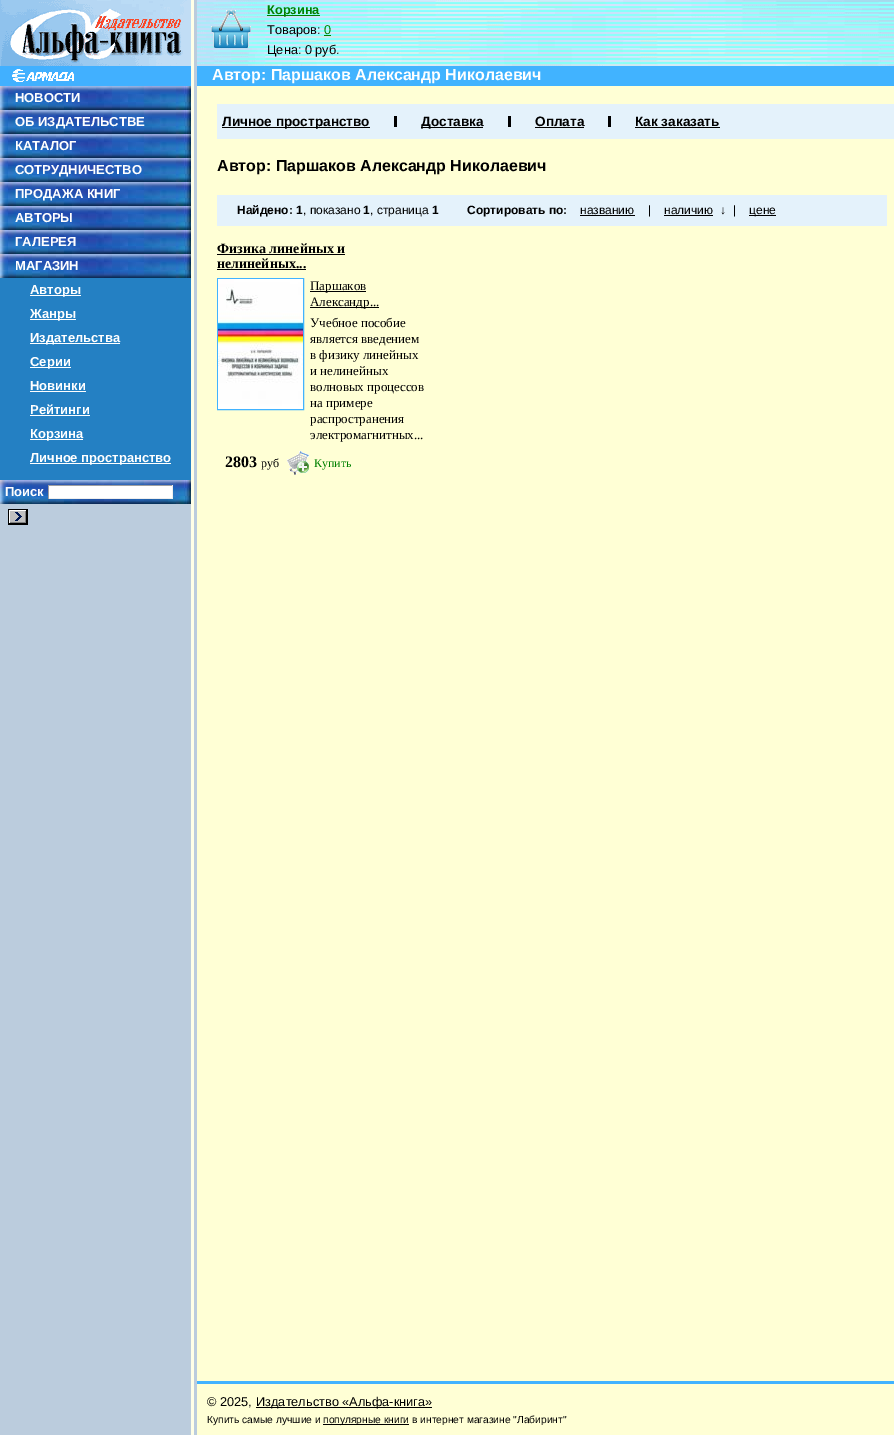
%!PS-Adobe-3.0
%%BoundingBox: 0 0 894 1435
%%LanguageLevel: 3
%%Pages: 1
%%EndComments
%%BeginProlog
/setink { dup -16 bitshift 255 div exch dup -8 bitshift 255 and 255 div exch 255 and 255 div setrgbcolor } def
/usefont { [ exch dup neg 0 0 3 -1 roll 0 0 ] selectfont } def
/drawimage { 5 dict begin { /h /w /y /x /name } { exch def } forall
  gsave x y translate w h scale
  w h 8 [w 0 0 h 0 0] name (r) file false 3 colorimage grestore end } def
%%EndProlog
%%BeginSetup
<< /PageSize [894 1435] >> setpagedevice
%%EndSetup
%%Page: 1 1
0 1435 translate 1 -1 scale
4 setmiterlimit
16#FFFFD5 setink
0 0 894 1435 rectfill
(img1.raw) 0 0 197 1105 drawimage
(img2.raw) 0 0 191 66 drawimage
(img3.raw) 0 66 191 20 drawimage
(img4.raw) 0 86 191 24 drawimage
/LiberationSans-Bold 13 usefont
16#FFFFFF setink
15 102 moveto (НОВОСТИ) show
(img4.raw) 0 110 191 24 drawimage
15 126 moveto (ОБ ИЗДАТЕЛЬСТВЕ) show
(img4.raw) 0 134 191 24 drawimage
15 150 moveto (КАТАЛОГ) show
(img4.raw) 0 158 191 24 drawimage
15 174 moveto (СОТРУДНИЧЕСТВО) show
(img4.raw) 0 182 191 24 drawimage
15 198 moveto (ПРОДАЖА КНИГ) show
(img4.raw) 0 206 191 24 drawimage
15 222 moveto (АВТОРЫ) show
(img4.raw) 0 230 191 24 drawimage
15 246 moveto (ГАЛЕРЕЯ) show
(img4.raw) 0 254 191 24 drawimage
15 270 moveto (МАГАЗИН) show
16#2480C3 setink
0 278 191 202 rectfill
16#FFFFFF setink
30 295 51 1 rectfill
30 294 moveto (Авторы) show
30 319 46 1 rectfill
30 318 moveto (Жанры) show
30 343 90 1 rectfill
30 342 moveto (Издательства) show
30 367 41 1 rectfill
30 366 moveto (Серии) show
30 390 moveto (Новинки) show
30 391 56 1 rectfill
30 414 moveto (Рейтинги) show
30 415 60 1 rectfill
30 439 53 1 rectfill
30 438 moveto (Корзина) show
30 463 141 1 rectfill
30 462 moveto (Личное пространство) show
(img4.raw) 0 480 191 24 drawimage
5 496 moveto (Поиск) show
[
    [49 486 123 12 16#FFFFFF]
    [48 485 125 1 16#9F9F9F]
    [172 485 1 14 16#EEEEEE]
    [48 498 125 1 16#EEEEEE]
    [48 485 1 14 16#9F9F9F]
] { aload pop setink rectfill } forall
(img5.raw) 8 509 20 16 drawimage
(img6.raw) 0 1105 197 276 drawimage
(img7.raw) 197 0 697 66 drawimage
(img8.raw) 211 10 40 38 drawimage
16#008000 setink
267 15 53 1 rectfill
/LiberationSans-Bold 12.75 usefont
267 14 moveto (Корзина) show
/LiberationSans-Regular 12.75 usefont
16#000000 setink
267 34 moveto (Товаров:) show
16#008000 setink
324 34 moveto (0) show
324 35 7 1 rectfill
16#000000 setink
267 54 moveto (Цена: 0 руб.) show
16#41B3FF setink
197 66 697 20 rectfill
/LiberationSans-Bold 16 usefont
16#FFFFFF setink
212 80 moveto (Автор: Паршаков Александр Николаевич) show
16#E4F2FB setink
217 104 677 35 rectfill
16#000000 setink
222 127 148 1 rectfill
/LiberationSans-Bold 13.6 usefont
222 126 moveto (Личное пространство) show
394 116 3 11 rectfill
421 127 62 1 rectfill
421 126 moveto (Доставка) show
535 126 moveto (Оплата) show
[
    [508 116 3 11 16#000000]
    [535 127 49 1 16#000000]
    [608 116 3 11 16#000000]
] { aload pop setink rectfill } forall
635 126 moveto (Как заказать) show
635 127 85 1 rectfill
/LiberationSans-Bold 16 usefont
217 171 moveto (Автор: Паршаков Александр Николаевич) show
16#E4F2FB setink
217 195 670 31 rectfill
/LiberationSans-Bold 12 usefont
16#000000 setink
237 214 moveto (Найдено: 1) show
/LiberationSans-Regular 12 usefont
303 214 moveto (, показано) show
/LiberationSans-Bold 12 usefont
363 214 moveto (1) show
/LiberationSans-Regular 12 usefont
370 214 moveto (, страница) show
/LiberationSans-Bold 12 usefont
432 214 moveto (1) show
467 214 moveto (Сортировать по:) show
/LiberationSans-Regular 12 usefont
580 214 moveto (названию) show
580 215 55 1 rectfill
648 214 moveto (|) show
664 214 moveto (наличию) show
664 215 49 1 rectfill
720 214 moveto (↓) show
733 214 moveto (|) show
749 215 27 1 rectfill
749 214 moveto (цене) show
/LiberationSerif-Bold 14 usefont
217 253 moveto (Физика линейных и) show
217 254 128 1 rectfill
217 268 moveto (нелинейных...) show
217 269 89 1 rectfill
16#41B3FF setink
217.5 278.5 86 131 rectstroke
(img9.raw) 218 279 85 130 drawimage
16#000000 setink
310 291 56 1 rectfill
/LiberationSerif-Regular 13 usefont
310 290 moveto (Паршаков) show
310 307 69 1 rectfill
[
    [(Александр...) 310 306]
    [(Учебное пособие) 310 327]
    [(является введением) 310 343]
    [(в физику линейных) 310 359]
    [(и нелинейных) 310 375]
    [(волновых процессов) 310 391]
    [(на примере) 310 407]
    [(распространения) 310 423]
    [(электромагнитных...) 310 439]
] { aload pop moveto show } forall
/LiberationSerif-Bold 16 usefont
225 467 moveto (2803) show
/LiberationSerif-Regular 12 usefont
261 467 moveto (руб) show
(img10.raw) 287 451 22 24 drawimage
16#008000 setink
314 467 moveto (Купить) show
(img11.raw) 0 1381 197 54 drawimage
16#41B3FF setink
197 1381 697 3 rectfill
/LiberationSans-Regular 12.75 usefont
16#000000 setink
207 1406 moveto (© 2025,) show
256 1407 176 1 rectfill
256 1406 moveto (Издательство «Альфа-книга») show
/LiberationSans-Regular 10.25 usefont
207 1423 moveto (Купить самые лучшие и) show
323 1424 86 1 rectfill
323 1423 moveto (популярные книги в интернет магазине "Лабиринт") show
showpage
%%EOF
